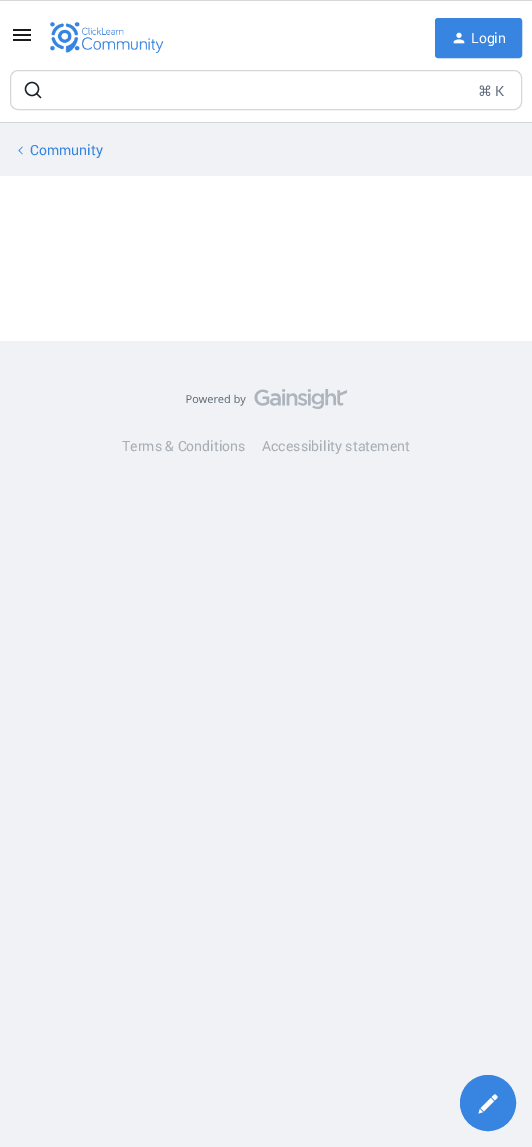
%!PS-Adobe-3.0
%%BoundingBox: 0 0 532 1147
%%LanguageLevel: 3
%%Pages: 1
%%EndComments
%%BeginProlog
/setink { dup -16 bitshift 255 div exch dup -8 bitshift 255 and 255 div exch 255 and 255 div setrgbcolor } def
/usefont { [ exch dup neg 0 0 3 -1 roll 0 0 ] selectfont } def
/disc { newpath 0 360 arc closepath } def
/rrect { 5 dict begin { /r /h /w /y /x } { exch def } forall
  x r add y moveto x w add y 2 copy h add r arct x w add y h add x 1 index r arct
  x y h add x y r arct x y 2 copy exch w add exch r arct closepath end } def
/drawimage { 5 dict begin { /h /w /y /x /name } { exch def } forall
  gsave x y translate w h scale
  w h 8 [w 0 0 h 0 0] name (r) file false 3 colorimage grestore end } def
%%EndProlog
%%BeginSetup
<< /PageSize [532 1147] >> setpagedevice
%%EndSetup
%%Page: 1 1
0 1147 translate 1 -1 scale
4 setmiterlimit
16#F0F2F6 setink
0 0 532 1147 rectfill
[
    [0 1 532 121 16#FFFFFF]
    [0 0 532 1 16#D5D7DB]
    [0 122 532 1 16#D5D7DB]
] { aload pop setink rectfill } forall
(img1.raw) 13 29 18 12 drawimage
(img2.raw) 50 22 114 31 drawimage
16#3785E0 setink
435.5 18.5 86 39 2.5 rrect gsave fill grestore
stroke
(img3.raw) 453 32 12 12 drawimage
/Roboto-Regular 14 usefont
16#FFFFFF setink
471 43 moveto (Login) show
16#D5D7DB setink
10.5 70.5 511 39 7.5 rrect stroke
16#181F26 setink
1.3 setlinewidth
32 89 6.5 disc stroke
1 setlinecap
36.5 93.5 moveto 40.5 97.5 lineto stroke
/DejaVuSans-Regular 14 usefont
16#5F6C7A setink
478 96 moveto (⌘) show
/Roboto-Regular 14 usefont
495 96 moveto (K) show
(img4.raw) 18 146 5 9 drawimage
16#3785E0 setink
30 155 moveto (Community) show
16#FFFFFF setink
0 176 532 165 rectfill
(img5.raw) 186 389 161 20 drawimage
16#A7AEB5 setink
122 451 moveto (Terms & Conditions) show
262 451 moveto (Accessibility statement) show
16#3785E0 setink
488 1103 27.5 disc gsave fill grestore
1 setlinewidth
0 setlinecap
stroke
(img6.raw) 478 1094 20 20 drawimage
showpage
%%EOF
